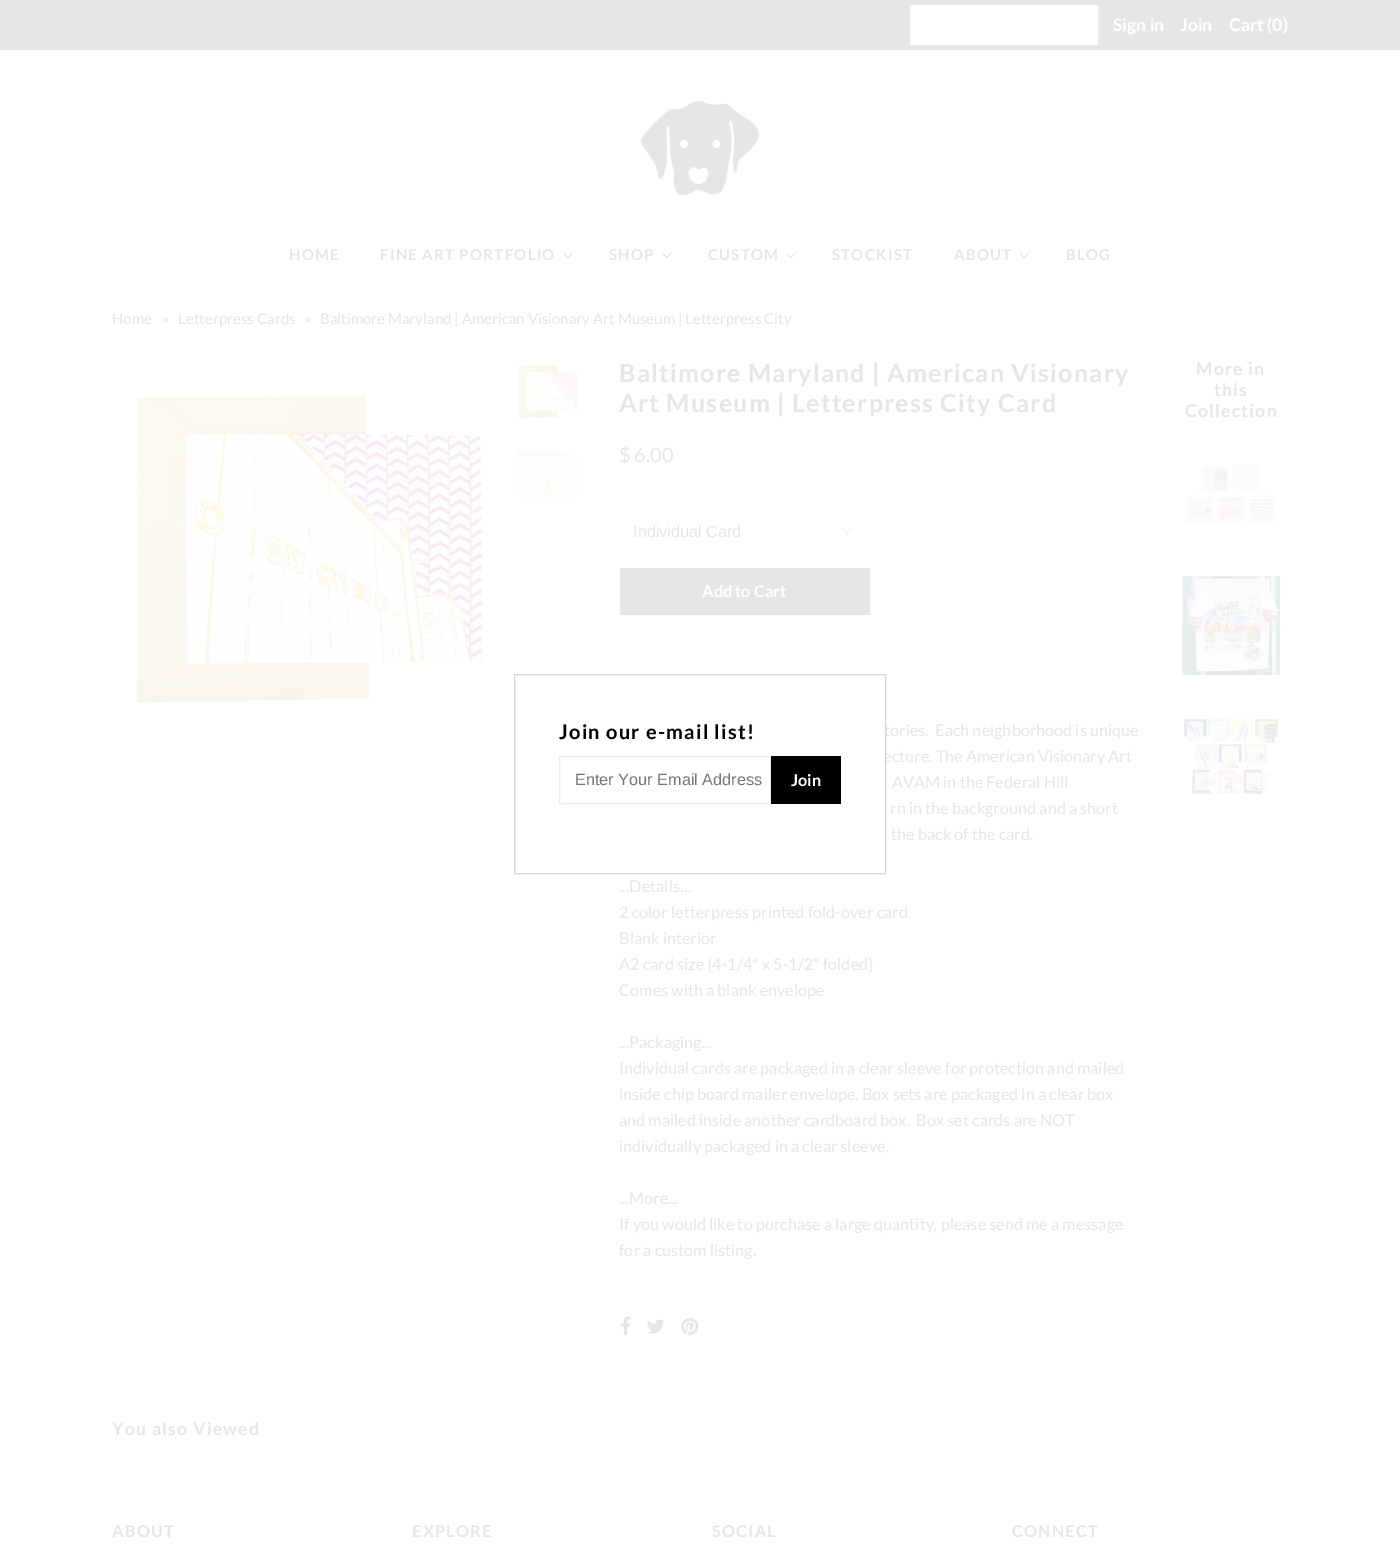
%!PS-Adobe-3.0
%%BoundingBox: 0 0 1400 1548
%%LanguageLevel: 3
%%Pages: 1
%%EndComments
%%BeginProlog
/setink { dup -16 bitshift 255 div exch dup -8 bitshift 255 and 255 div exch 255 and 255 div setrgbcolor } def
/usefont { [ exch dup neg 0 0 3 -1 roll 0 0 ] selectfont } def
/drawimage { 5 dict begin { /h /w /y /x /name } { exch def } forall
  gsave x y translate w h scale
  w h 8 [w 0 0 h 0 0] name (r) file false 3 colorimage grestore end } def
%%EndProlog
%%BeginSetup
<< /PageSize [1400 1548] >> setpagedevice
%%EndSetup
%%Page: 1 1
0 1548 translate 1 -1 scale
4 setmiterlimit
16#FFFFFF setink
0 0 1400 1548 rectfill
16#E6E6E6 setink
0 0 1400 50 rectfill
16#FFFFFF setink
910.5 5.5 moveto 1097.5 5.5 lineto 1097.5 44.5 lineto 910.5 44.5 lineto closepath gsave fill grestore
16#FDFDFD setink
stroke
/Lato-Bold 17.5 usefont
16#FFFFFF setink
[
    [(Sign in) 1113 31]
    [(Join) 1180 31]
    [(Cart \(0\)) 1229 31]
] { aload pop moveto show } forall
(img1.raw) 640 100 120 96 drawimage
/Lato-Bold 15 usefont
16#E6E6E6 setink
289 260 moveto 1.25 0 (HOME) ashow
380 260 moveto 1.25 0 (FINE ART PORTFOLIO) ashow
(img2.raw) 563 252 10 7 drawimage
609 260 moveto 1.25 0 (SHOP) ashow
(img3.raw) 662 252 10 7 drawimage
708 260 moveto 1.25 0 (CUSTOM) ashow
(img4.raw) 785 252 11 7 drawimage
832 260 moveto 1.25 0 (STOCKIST) ashow
954 260 moveto 1.25 0 (ABOUT) ashow
(img5.raw) 1019 252 11 7 drawimage
1066 260 moveto 1.25 0 (BLOG) ashow
/Lato-Regular 15 usefont
[
    [(Home) 112 324]
    [(») 162 324]
    [(Letterpress Cards) 178 324]
    [(») 304 324]
    [(Baltimore Maryland | American Visionary Art Museum | Letterpress City) 320 324]
] { aload pop moveto show } forall
(img6.raw) 136 395 347 308 drawimage
(img7.raw) 517 364 62 55 drawimage
(img8.raw) 517 450 62 48 drawimage
/Lato-Bold 25 usefont
619 382 moveto 1.25 0 (Baltimore Maryland | American Visionary) ashow
619 412 moveto 1.25 0 (Art Museum | Letterpress City Card) ashow
/Lato-Regular 20 usefont
619 462 moveto ($ 6.00) show
(img9.raw) 841 527 12 9 drawimage
/LiberationSans-Regular 16.25 usefont
633 537 moveto (Individual Card) show
620 568 250 47 rectfill
/Lato-Bold 16.25 usefont
16#FFFFFF setink
702 597 moveto (Add to Cart) show
/Lato-Regular 16.25 usefont
16#E6E6E6 setink
[
    [(tories.  Each neighborhood is unique) 884 736]
    [(ecture. The American Visionary Art) 883 762]
    [(AVAM in the Federal Hill) 892 788]
    [(rn in the background and a short) 890 814]
    [(the back of the card.) 891 840]
    [(...Details…) 619 892]
    [(2 color letterpress printed fold-over card) 619 918]
    [(Blank interior) 619 944]
    [(A2 card size {4-1/4" x 5-1/2" folded}) 619 970]
    [(Comes with a blank envelope) 619 996]
    [(...Packaging...) 619 1048]
    [(Individual cards are packaged in a clear sleeve for protection and mailed) 619 1074]
    [(inside chip board mailer envelope. Box sets are packaged in a clear box) 619 1100]
    [(and mailed inside another cardboard box.  Box set cards are NOT) 619 1126]
    [(individually packaged in a clear sleeve.) 619 1152]
    [(...More...) 619 1204]
    [(If you would like to purchase a large quantity, please send me a message) 619 1230]
    [(for a custom listing.) 619 1256]
] { aload pop moveto show } forall
(img10.raw) 621 1316 10 20 drawimage
(img11.raw) 647 1319 18 15 drawimage
(img12.raw) 681 1318 18 18 drawimage
/Lato-Bold 17.5 usefont
1196 375 moveto 1.25 0 (More in) ashow
1214 396 moveto 1.25 0 (this) ashow
1185 417 moveto 1.25 0 (Collection) ashow
(img13.raw) 1185 464 92 61 drawimage
(img14.raw) 1182 576 98 99 drawimage
(img15.raw) 1182 717 98 79 drawimage
112 1435 moveto 1.25 0 (You also Viewed) ashow
/Lato-Bold 16.25 usefont
112 1537 moveto 1.25 0 (ABOUT) ashow
412 1537 moveto 1.25 0 (EXPLORE) ashow
712 1537 moveto 1.25 0 (SOCIAL) ashow
1012 1537 moveto 1.25 0 (CONNECT) ashow
16#FFFFFF setink
883 728 2 33 rectfill
16#D5D5D5 setink
514.5 674.5 371 199 rectstroke
/Lato-Bold 20 usefont
16#000000 setink
559 739 moveto 1.25 0 (Join our e-mail list!) ashow
16#EEEEEE setink
559.5 756.5 211 47 rectstroke
/LiberationSans-Regular 16.25 usefont
16#757575 setink
575 785 moveto (Enter Your Email Address) show
16#000000 setink
771 756 70 48 rectfill
/Lato-Bold 16.25 usefont
16#FFFFFF setink
791 786 moveto (Join) show
showpage
%%EOF
